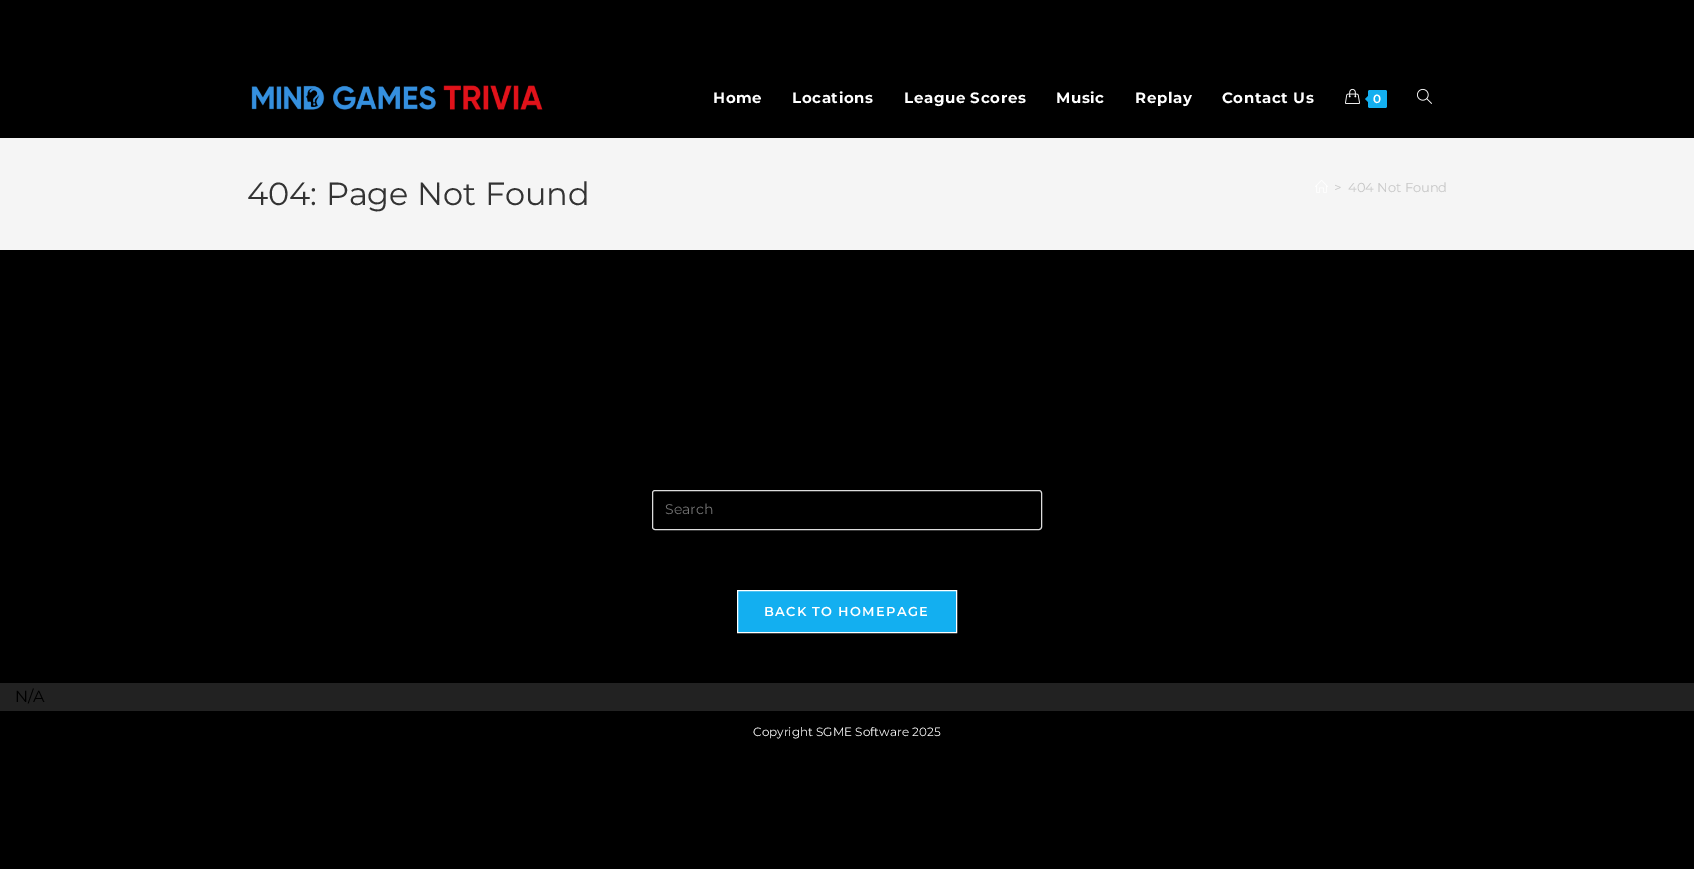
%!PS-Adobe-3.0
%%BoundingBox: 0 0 1694 869
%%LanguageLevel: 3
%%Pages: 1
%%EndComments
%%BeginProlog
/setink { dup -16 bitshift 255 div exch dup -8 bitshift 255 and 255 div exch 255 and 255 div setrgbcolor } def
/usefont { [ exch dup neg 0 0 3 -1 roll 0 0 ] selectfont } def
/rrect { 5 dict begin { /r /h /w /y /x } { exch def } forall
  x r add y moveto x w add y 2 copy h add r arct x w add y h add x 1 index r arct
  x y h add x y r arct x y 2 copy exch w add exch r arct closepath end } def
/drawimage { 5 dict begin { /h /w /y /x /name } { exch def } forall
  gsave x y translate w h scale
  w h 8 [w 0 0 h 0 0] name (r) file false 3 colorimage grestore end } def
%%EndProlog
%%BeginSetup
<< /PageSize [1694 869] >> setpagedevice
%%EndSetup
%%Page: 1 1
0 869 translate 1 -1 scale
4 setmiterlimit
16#000000 setink
0 0 1694 869 rectfill
(img1.raw) 251 85 292 25 drawimage
/Montserrat-Bold 15 usefont
16#FFFFFF setink
713 103 moveto 0.6 0 (Home) ashow
792 103 moveto 0.6 0 (Locations) ashow
904 103 moveto 0.6 0 (League Scores) ashow
1056 103 moveto 0.6 0 (Music) ashow
1135 103 moveto 0.6 0 (Replay) ashow
1222 103 moveto 0.6 0 (Contact Us) ashow
(img2.raw) 1345 88 15 16 drawimage
16#13AFF0 setink
1368 90 19 18 2 rrect fill
1370 94 moveto 1370 104 lineto 1365 99 lineto closepath fill
/Montserrat-SemiBold 12 usefont
16#FFFFFF setink
1373 103 moveto 0.6 0 (0) ashow
(img3.raw) 1417 88 15 16 drawimage
16#F5F5F5 setink
0 138 1694 112 rectfill
/Montserrat-Regular 32 usefont
16#333333 setink
247 205 moveto (404: Page Not Found) show
(img4.raw) 1315 180 13 13 drawimage
/Montserrat-Regular 13 usefont
16#C6C6C6 setink
1334 192 moveto (>) show
1348 192 moveto (404 Not Found) show
16#DDDDDD setink
652.5 490.5 389 39 2.5 rrect stroke
/Montserrat-Regular 14 usefont
16#757575 setink
665 514 moveto (Search) show
16#13AFF0 setink
737.5 590.5 moveto 956.5 590.5 lineto 956.5 632.5 lineto 737.5 632.5 lineto closepath gsave fill grestore
16#FFFFFF setink
stroke
/Montserrat-SemiBold 13 usefont
764 616 moveto 1.25 0 (BACK TO HOMEPAGE) ashow
16#222222 setink
0 683 1694 28 rectfill
/Montserrat-Regular 16 usefont
16#000000 setink
15 702 moveto (N/A) show
/Montserrat-Regular 12 usefont
16#FFFFFF setink
753 736 moveto (Copyright SGME Software 2025) show
showpage
%%EOF
